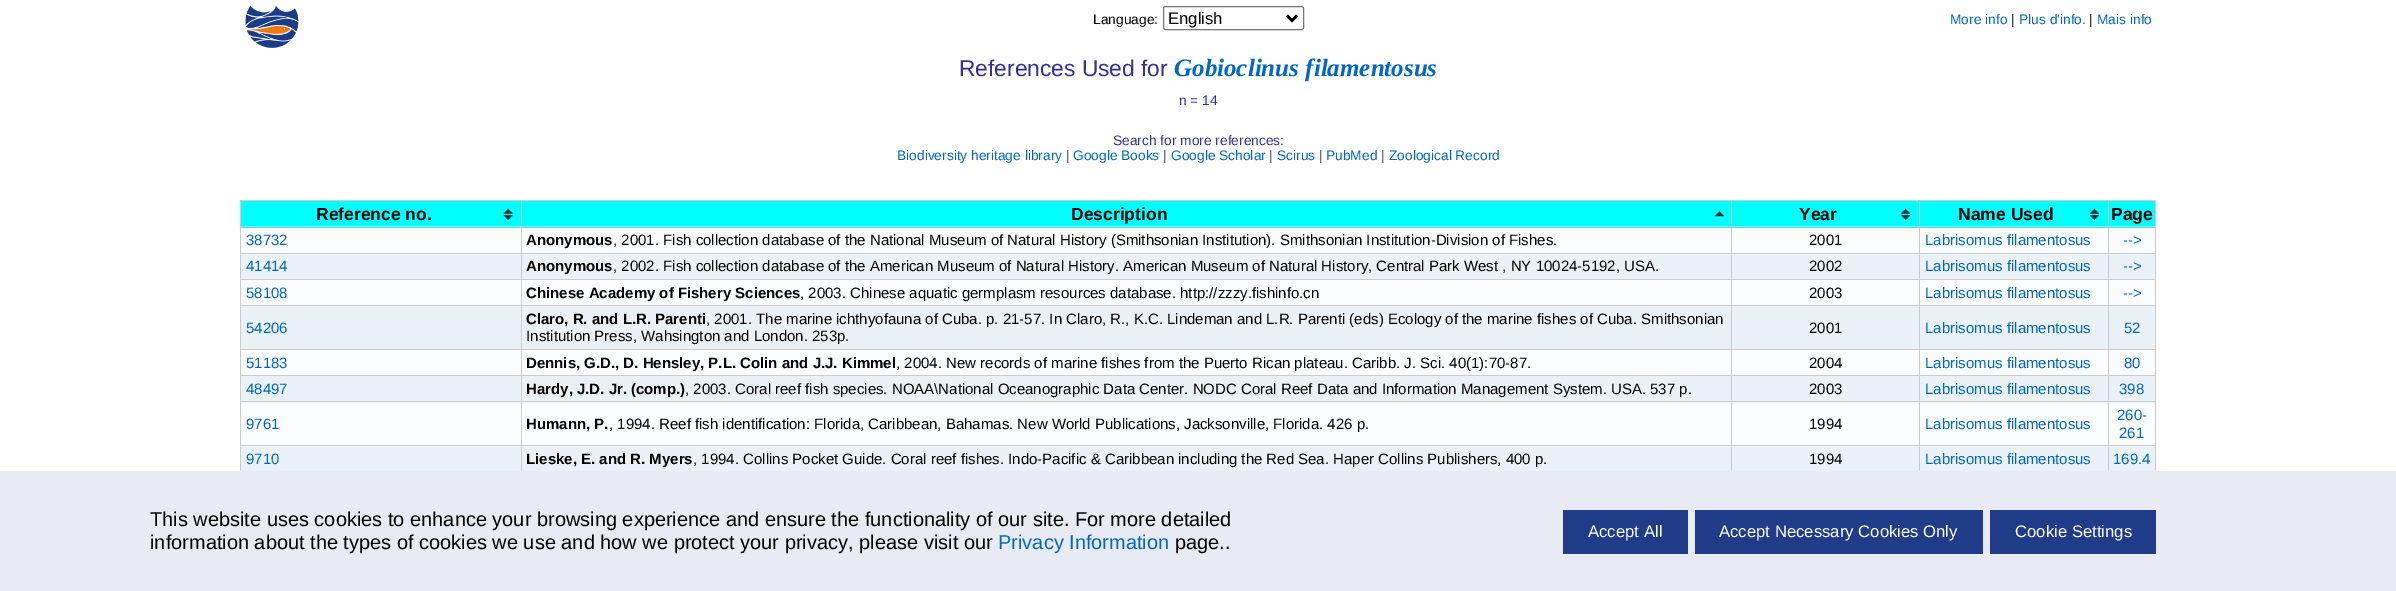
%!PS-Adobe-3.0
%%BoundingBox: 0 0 2396 591
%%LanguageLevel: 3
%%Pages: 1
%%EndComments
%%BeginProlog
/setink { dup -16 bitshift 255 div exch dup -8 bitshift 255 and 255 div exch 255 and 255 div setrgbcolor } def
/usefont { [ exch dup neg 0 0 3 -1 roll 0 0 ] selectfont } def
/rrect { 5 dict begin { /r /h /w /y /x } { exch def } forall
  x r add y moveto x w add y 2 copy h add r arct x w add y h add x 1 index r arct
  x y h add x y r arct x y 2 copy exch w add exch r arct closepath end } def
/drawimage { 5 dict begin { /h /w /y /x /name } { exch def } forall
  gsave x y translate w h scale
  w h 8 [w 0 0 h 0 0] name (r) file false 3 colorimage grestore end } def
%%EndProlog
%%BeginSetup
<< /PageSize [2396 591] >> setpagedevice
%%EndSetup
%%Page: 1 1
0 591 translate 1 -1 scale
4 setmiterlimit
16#FFFFFF setink
0 0 2396 591 rectfill
(img1.raw) 245 5 54 43 drawimage
/LiberationSans-Regular 13.75 usefont
16#000000 setink
1093 24 moveto (Language:) show
16#767676 setink
1163.5 6.5 140 23 2 rrect stroke
16#000000 setink
2.5 setlinewidth
1287 15.5 moveto 1292 20.5 lineto 1297 15.5 lineto stroke
/LiberationSans-Regular 16.7 usefont
1168 24 moveto (English) show
/LiberationSans-Regular 13.75 usefont
16#0066CC setink
1950 24 moveto (More info) show
16#000000 setink
2011 24 moveto (|) show
16#0066CC setink
2019 24 moveto (Plus d'info.) show
16#000000 setink
2089 24 moveto (|) show
16#0066CC setink
2097 24 moveto (Mais info) show
/LiberationSans-Regular 22.75 usefont
16#333399 setink
959 76 moveto (References Used for) show
/LiberationSerif-BoldItalic 25 usefont
16#0066CC setink
1174 76 moveto (Gobioclinus filamentosus) show
/LiberationSans-Regular 13.75 usefont
16#333399 setink
1179 105 moveto (n = 14) show
1113 145 moveto (Search for more references:) show
16#0066CC setink
897 160 moveto (Biodiversity heritage library) show
16#333399 setink
1066 160 moveto (|) show
16#0066CC setink
1073 160 moveto (Google Books) show
16#333399 setink
1163 160 moveto (|) show
16#0066CC setink
1171 160 moveto (Google Scholar) show
16#333399 setink
1269 160 moveto (|) show
16#0066CC setink
1277 160 moveto (Scirus) show
16#333399 setink
1319 160 moveto (|) show
16#0066CC setink
1326 160 moveto (PubMed) show
16#333399 setink
1381 160 moveto (|) show
16#0066CC setink
1389 160 moveto (Zoological Record) show
[
    [240 200 1916 1 16#CCCCCC]
    [2155 200 1 271 16#CCCCCC]
    [240 200 1 271 16#CCCCCC]
    [241 201 280 27 16#00FFFF]
] { aload pop setink rectfill } forall
(img2.raw) 503 208 10 12 drawimage
/LiberationSans-Bold 17.5 usefont
16#000000 setink
316 220 moveto (Reference no.) show
16#00FFFF setink
522 201 1397 27 rectfill
(img3.raw) 1714 211 10 6 drawimage
16#000000 setink
1071 220 moveto (Description) show
(img4.raw) 1901 208 10 12 drawimage
1799 220 moveto (Year) show
16#00FFFF setink
1920 201 188 27 rectfill
(img5.raw) 2089 208 10 12 drawimage
16#000000 setink
1958 220 moveto (Name Used) show
16#00FFFF setink
2109 201 46 27 rectfill
16#000000 setink
2111 220 moveto (Page) show
16#FAFCFE setink
241 228 1914 25 rectfill
16#CCCCCC setink
240 226 1916 1 rectfill
/LiberationSans-Regular 15 usefont
16#0066CC setink
246 245 moveto (38732) show
/LiberationSans-Bold 15 usefont
16#000000 setink
526 245 moveto (Anonymous) show
/LiberationSans-Regular 15 usefont
613 245 moveto (, 2001. Fish collection database of the National Museum of Natural History \(Smithsonian Institution\). Smithsonian Institution-Division of Fishes.) show
1809 245 moveto (2001) show
16#0066CC setink
1925 245 moveto (Labrisomus filamentosus) show
2123 245 moveto (-->) show
16#EAF2F7 setink
241 254 1914 25 rectfill
16#CCCCCC setink
240 253 1916 1 rectfill
16#0066CC setink
246 271 moveto (41414) show
/LiberationSans-Bold 15 usefont
16#000000 setink
526 271 moveto (Anonymous) show
/LiberationSans-Regular 15 usefont
613 271 moveto (, 2002. Fish collection database of the American Museum of Natural History. American Museum of Natural History, Central Park West , NY 10024-5192, USA.) show
1809 271 moveto (2002) show
16#0066CC setink
1925 271 moveto (Labrisomus filamentosus) show
2123 271 moveto (-->) show
16#FAFCFE setink
241 280 1914 25 rectfill
16#CCCCCC setink
240 279 1916 1 rectfill
16#0066CC setink
246 298 moveto (58108) show
/LiberationSans-Bold 15 usefont
16#000000 setink
526 298 moveto (Chinese Academy of Fishery Sciences) show
/LiberationSans-Regular 15 usefont
800 298 moveto (, 2003. Chinese aquatic germplasm resources database. http://zzzy.fishinfo.cn) show
1809 298 moveto (2003) show
16#0066CC setink
1925 298 moveto (Labrisomus filamentosus) show
2123 298 moveto (-->) show
16#EAF2F7 setink
241 306 1914 43 rectfill
16#CCCCCC setink
240 305 1916 1 rectfill
16#0066CC setink
246 333 moveto (54206) show
/LiberationSans-Bold 15 usefont
16#000000 setink
526 324 moveto (Claro, R. and L.R. Parenti) show
/LiberationSans-Regular 15 usefont
[
    [(, 2001. The marine ichthyofauna of Cuba. p. 21-57. In Claro, R., K.C. Lindeman and L.R. Parenti \(eds\) Ecology of the marine fishes of Cuba. Smithsonian) 706 324]
    [(Institution Press, Wahsington and London. 253p.) 526 341]
    [(2001) 1809 333]
] { aload pop moveto show } forall
16#0066CC setink
1925 333 moveto (Labrisomus filamentosus) show
2124 333 moveto (52) show
16#FAFCFE setink
241 350 1914 25 rectfill
16#CCCCCC setink
240 349 1916 1 rectfill
16#0066CC setink
246 368 moveto (51183) show
/LiberationSans-Bold 15 usefont
16#000000 setink
526 368 moveto (Dennis, G.D., D. Hensley, P.L. Colin and J.J. Kimmel) show
/LiberationSans-Regular 15 usefont
896 368 moveto (, 2004. New records of marine fishes from the Puerto Rican plateau. Caribb. J. Sci. 40\(1\):70-87.) show
1809 368 moveto (2004) show
16#0066CC setink
1925 368 moveto (Labrisomus filamentosus) show
2124 368 moveto (80) show
16#EAF2F7 setink
241 376 1914 27 rectfill
16#CCCCCC setink
240 375 1916 1 rectfill
16#0066CC setink
246 394 moveto (48497) show
/LiberationSans-Bold 15 usefont
16#000000 setink
526 394 moveto (Hardy, J.D. Jr. \(comp.\)) show
/LiberationSans-Regular 15 usefont
685 394 moveto (, 2003. Coral reef fish species. NOAA\\National Oceanographic Data Center. NODC Coral Reef Data and Information Management System. USA. 537 p.) show
1809 394 moveto (2003) show
16#0066CC setink
1925 394 moveto (Labrisomus filamentosus) show
2119 394 moveto (398) show
16#FAFCFE setink
241 403 1914 42 rectfill
16#CCCCCC setink
240 401 1916 1 rectfill
16#0066CC setink
246 429 moveto (9761) show
/LiberationSans-Bold 15 usefont
16#000000 setink
526 429 moveto (Humann, P.) show
/LiberationSans-Regular 15 usefont
609 429 moveto (, 1994. Reef fish identification: Florida, Caribbean, Bahamas. New World Publications, Jacksonville, Florida. 426 p.) show
1809 429 moveto (1994) show
16#0066CC setink
[
    [(Labrisomus filamentosus) 1925 429]
    [(260-) 2117 420]
    [(261) 2119 438]
] { aload pop moveto show } forall
16#EAF2F7 setink
241 446 1914 25 rectfill
16#CCCCCC setink
240 445 1916 1 rectfill
16#0066CC setink
246 464 moveto (9710) show
16#CCCCCC setink
521 200 1 273 rectfill
/LiberationSans-Bold 15 usefont
16#000000 setink
526 464 moveto (Lieske, E. and R. Myers) show
/LiberationSans-Regular 15 usefont
693 464 moveto (, 1994. Collins Pocket Guide. Coral reef fishes. Indo-Pacific & Caribbean including the Red Sea. Haper Collins Publishers, 400 p.) show
16#CCCCCC setink
1731 200 1 273 rectfill
16#000000 setink
1809 464 moveto (1994) show
16#CCCCCC setink
1919 200 1 273 rectfill
16#0066CC setink
1925 464 moveto (Labrisomus filamentosus) show
16#CCCCCC setink
2108 200 1 273 rectfill
16#0066CC setink
2113 464 moveto (169.4) show
16#E8EBF3 setink
0 471 2396 120 rectfill
/LiberationSans-Regular 20 usefont
16#000000 setink
150 526 moveto (This website uses cookies to enhance your browsing experience and ensure the functionality of our site. For more detailed) show
150 549 moveto (information about the types of cookies we use and how we protect your privacy, please visit our) show
16#0066CC setink
998 549 moveto (Privacy Information) show
16#000000 setink
1175 549 moveto (page..) show
16#203C88 setink
1563 510 125 44 rectfill
/LiberationSans-Regular 16.7 usefont
16#FFFFFF setink
1588 537 moveto (Accept All) show
16#203C88 setink
1695 510 288 44 rectfill
16#FFFFFF setink
1719 537 moveto (Accept Necessary Cookies Only) show
16#203C88 setink
1990 510 166 44 rectfill
16#FFFFFF setink
2015 537 moveto (Cookie Settings) show
showpage
%%EOF
